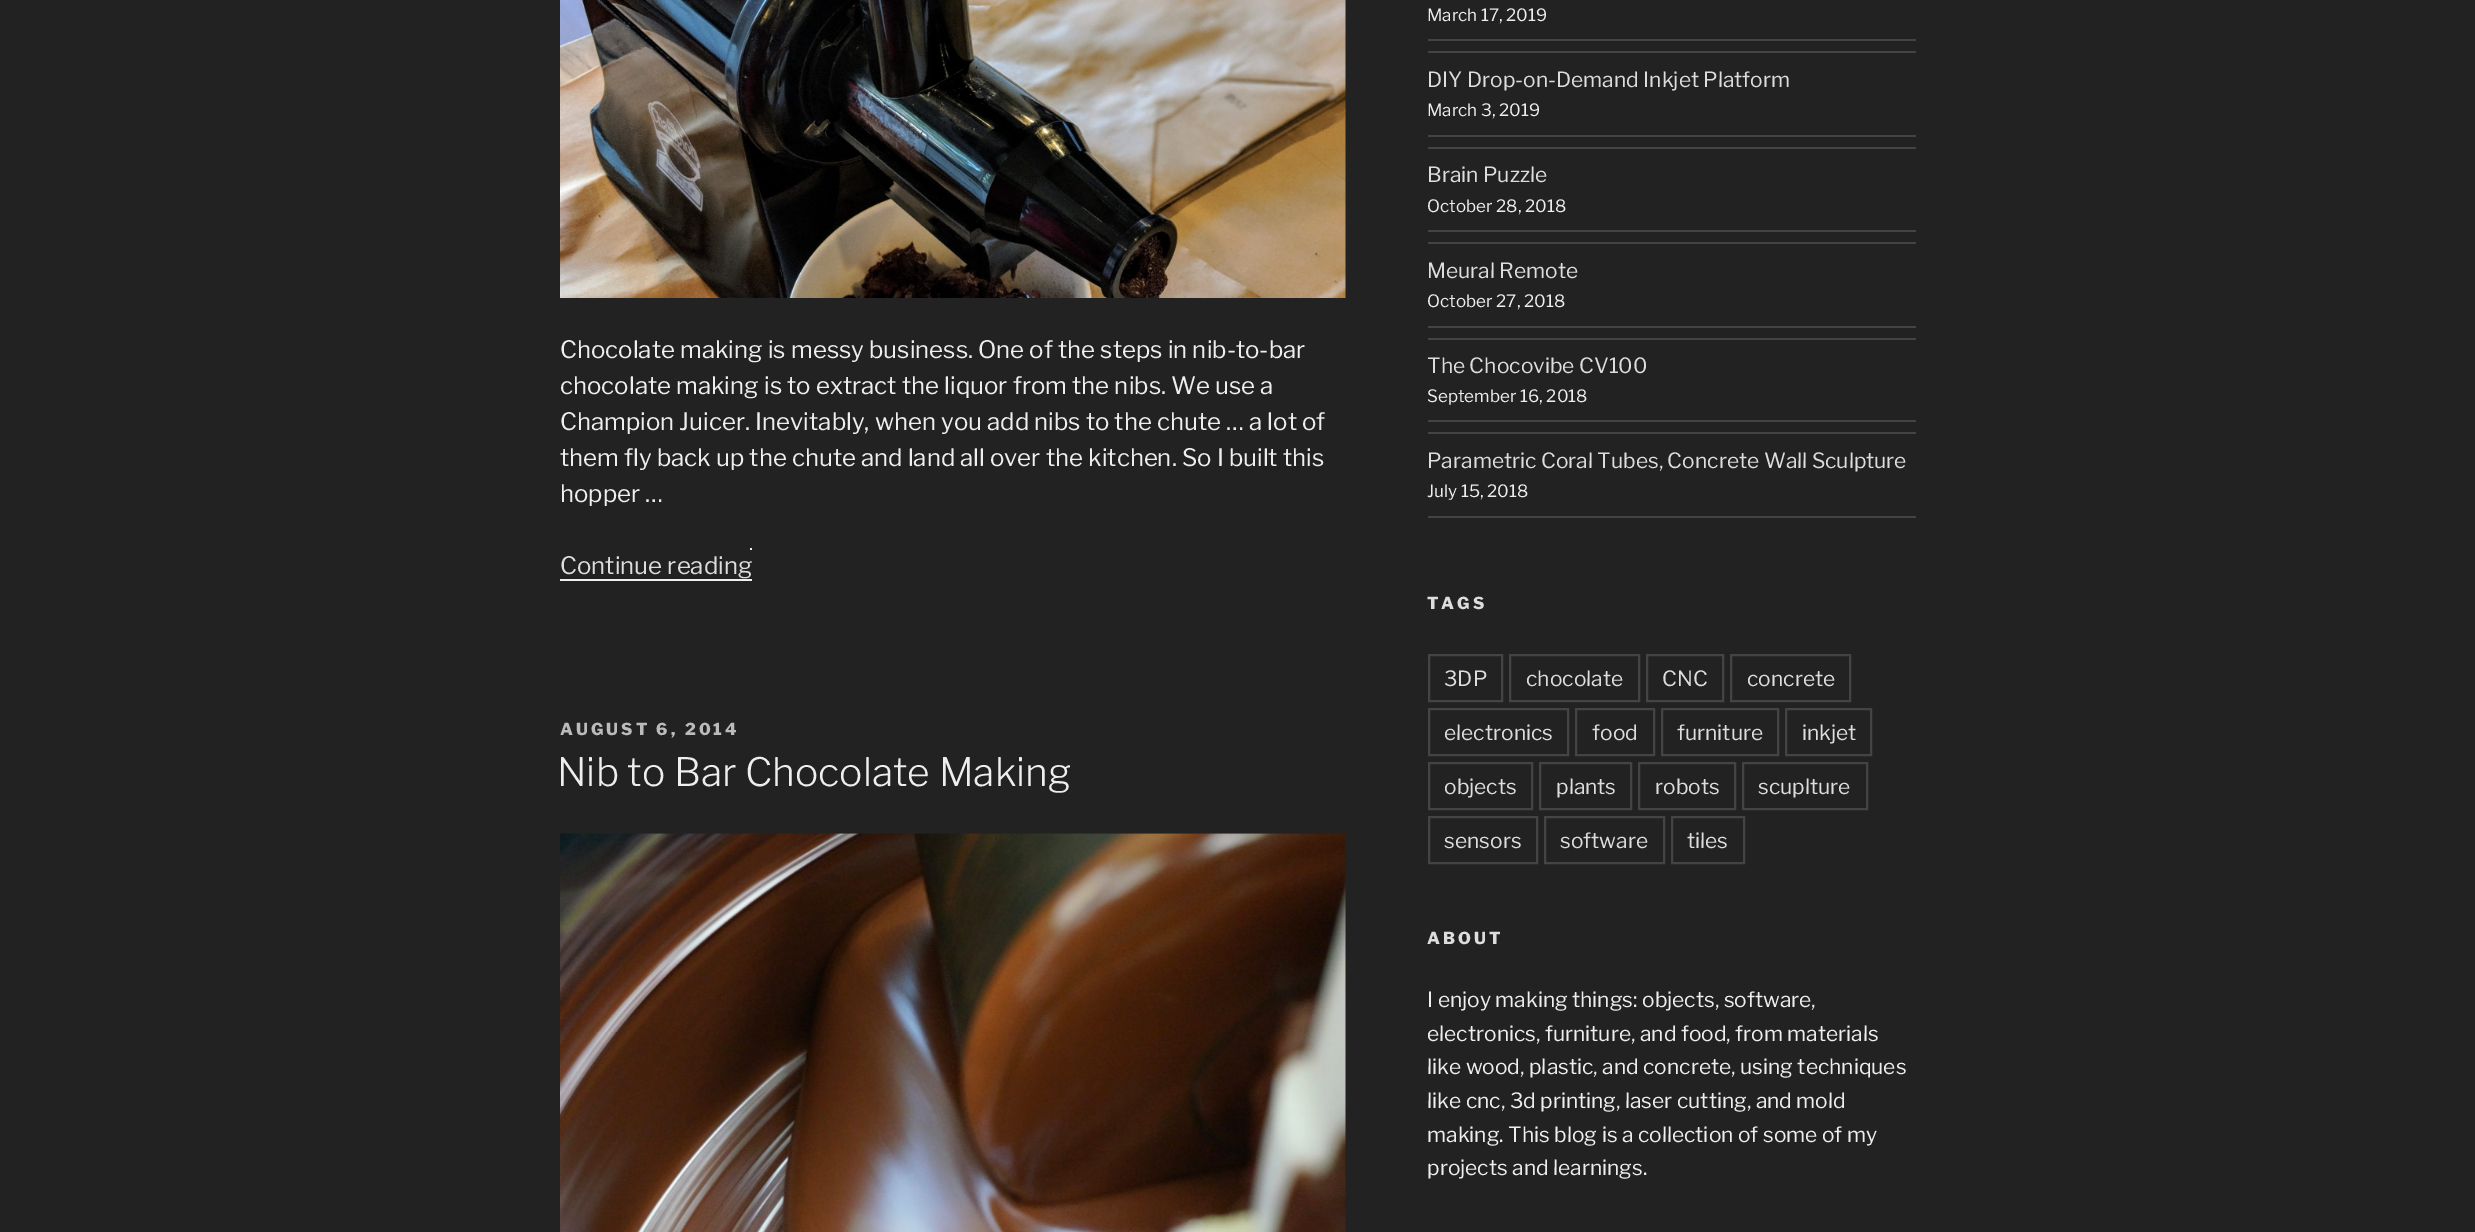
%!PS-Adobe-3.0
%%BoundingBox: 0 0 2475 1232
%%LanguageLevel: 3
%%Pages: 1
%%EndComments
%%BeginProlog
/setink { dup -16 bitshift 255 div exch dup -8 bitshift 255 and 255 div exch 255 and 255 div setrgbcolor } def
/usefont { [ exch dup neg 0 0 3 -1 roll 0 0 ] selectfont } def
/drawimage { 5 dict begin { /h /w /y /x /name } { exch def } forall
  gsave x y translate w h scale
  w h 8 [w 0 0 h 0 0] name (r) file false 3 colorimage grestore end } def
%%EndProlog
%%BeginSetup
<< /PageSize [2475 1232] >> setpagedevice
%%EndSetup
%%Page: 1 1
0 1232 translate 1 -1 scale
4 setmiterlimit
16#222222 setink
0 0 2475 1232 rectfill
(img1.raw) 560 0 786 298 drawimage
/LibreFranklin-Regular 24 usefont
16#EEEEEE setink
[
    [(Chocolate making is messy business. One of the steps in nib-to-bar) 560 358]
    [(chocolate making is to extract the liquor from the nibs. We use a) 560 394]
    [(Champion Juicer. Inevitably, when you add nibs to the chute … a lot of) 560 430]
    [(them fly back up the chute and land all over the kitchen. So I built this) 560 466]
    [(hopper …) 560 502]
] { aload pop moveto show } forall
16#DDDDDD setink
560 574 moveto (Continue reading) show
16#F0F0F0 setink
560 579 192 2 rectfill
750 548 2 2 rectfill
/LibreFranklin-ExtraBold 16.5 usefont
16#BBBBBB setink
560 735 moveto 3 0 (AUGUST 6, 2014) ashow
/LibreFranklin-Light 39 usefont
16#EEEEEE setink
557 786 moveto (Nib to Bar Chocolate Making) show
(img2.raw) 560 833 786 399 drawimage
16#444444 setink
1428 39 488 2 rectfill
/LibreFranklin-Regular 17 usefont
16#EEEEEE setink
1427 21 moveto (March 17, 2019) show
16#444444 setink
1428 51 488 2 rectfill
1428 135 488 2 rectfill
/LibreFranklin-Regular 21 usefont
16#DDDDDD setink
1427 87 moveto (DIY Drop-on-Demand Inkjet Platform) show
/LibreFranklin-Regular 17 usefont
16#EEEEEE setink
1427 116 moveto (March 3, 2019) show
16#444444 setink
1428 147 488 2 rectfill
1428 230 488 2 rectfill
/LibreFranklin-Regular 21 usefont
16#DDDDDD setink
1427 182 moveto (Brain Puzzle) show
/LibreFranklin-Regular 17 usefont
16#EEEEEE setink
1427 212 moveto (October 28, 2018) show
16#444444 setink
1428 242 488 2 rectfill
1428 326 488 2 rectfill
/LibreFranklin-Regular 21 usefont
16#DDDDDD setink
1427 278 moveto (Meural Remote) show
/LibreFranklin-Regular 17 usefont
16#EEEEEE setink
1427 307 moveto (October 27, 2018) show
16#444444 setink
1428 338 488 2 rectfill
1428 420 488 2 rectfill
/LibreFranklin-Regular 21 usefont
16#DDDDDD setink
1427 373 moveto (The Chocovibe CV100) show
/LibreFranklin-Regular 17 usefont
16#EEEEEE setink
1427 402 moveto (September 16, 2018) show
16#444444 setink
1428 432 488 2 rectfill
1428 516 488 2 rectfill
/LibreFranklin-Regular 21 usefont
16#DDDDDD setink
1427 468 moveto (Parametric Coral Tubes, Concrete Wall Sculpture) show
/LibreFranklin-Regular 17 usefont
16#EEEEEE setink
1427 497 moveto (July 15, 2018) show
/LibreFranklin-ExtraBold 16.5 usefont
16#DDDDDD setink
1427 609 moveto 3 0 (TAGS) ashow
16#444444 setink
2 setlinewidth
1429 655 73 46 rectstroke
/LibreFranklin-Regular 21 usefont
16#DDDDDD setink
1444 686 moveto (3DP) show
16#444444 setink
1510 655 129 46 rectstroke
16#DDDDDD setink
1526 686 moveto (chocolate) show
16#444444 setink
1647 655 76 46 rectstroke
16#DDDDDD setink
1662 686 moveto (CNC) show
16#444444 setink
1731 655 119 46 rectstroke
16#DDDDDD setink
1747 686 moveto (concrete) show
16#444444 setink
1429 709 139 46 rectstroke
16#DDDDDD setink
1444 740 moveto (electronics) show
16#444444 setink
1576 709 78 46 rectstroke
16#DDDDDD setink
1592 740 moveto (food) show
16#444444 setink
1662 709 116 46 rectstroke
16#DDDDDD setink
1677 740 moveto (furniture) show
16#444444 setink
1786 709 85 46 rectstroke
16#DDDDDD setink
1802 740 moveto (inkjet) show
16#444444 setink
1429 763 103 46 rectstroke
16#DDDDDD setink
1444 794 moveto (objects) show
16#444444 setink
1540 763 91 46 rectstroke
16#DDDDDD setink
1556 794 moveto (plants) show
16#444444 setink
1639 763 96 46 rectstroke
16#DDDDDD setink
1655 794 moveto (robots) show
16#444444 setink
1743 763 124 46 rectstroke
16#DDDDDD setink
1758 794 moveto (scuplture) show
16#444444 setink
1429 817 108 46 rectstroke
16#DDDDDD setink
1444 848 moveto (sensors) show
16#444444 setink
1545 817 119 46 rectstroke
16#DDDDDD setink
1560 848 moveto (software) show
16#444444 setink
1672 817 72 46 rectstroke
16#DDDDDD setink
1687 848 moveto (tiles) show
/LibreFranklin-ExtraBold 16.5 usefont
1427 944 moveto 3 0 (ABOUT) ashow
/LibreFranklin-Regular 21 usefont
16#EEEEEE setink
[
    [(I enjoy making things: objects, software,) 1427 1007]
    [(electronics, furniture, and food, from materials) 1427 1041]
    [(like wood, plastic, and concrete, using techniques) 1427 1074]
    [(like cnc, 3d printing, laser cutting, and mold) 1427 1108]
    [(making. This blog is a collection of some of my) 1427 1142]
    [(projects and learnings.) 1427 1175]
] { aload pop moveto show } forall
showpage
%%EOF
